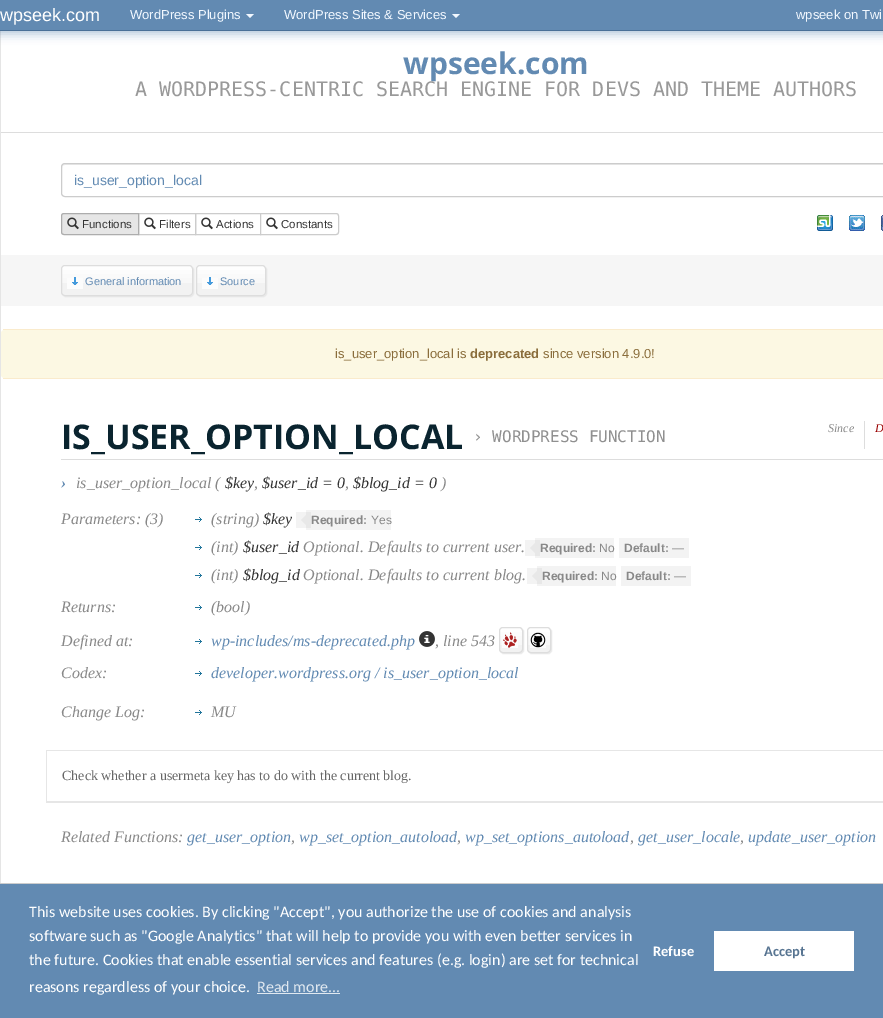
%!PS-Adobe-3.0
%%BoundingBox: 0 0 883 1018
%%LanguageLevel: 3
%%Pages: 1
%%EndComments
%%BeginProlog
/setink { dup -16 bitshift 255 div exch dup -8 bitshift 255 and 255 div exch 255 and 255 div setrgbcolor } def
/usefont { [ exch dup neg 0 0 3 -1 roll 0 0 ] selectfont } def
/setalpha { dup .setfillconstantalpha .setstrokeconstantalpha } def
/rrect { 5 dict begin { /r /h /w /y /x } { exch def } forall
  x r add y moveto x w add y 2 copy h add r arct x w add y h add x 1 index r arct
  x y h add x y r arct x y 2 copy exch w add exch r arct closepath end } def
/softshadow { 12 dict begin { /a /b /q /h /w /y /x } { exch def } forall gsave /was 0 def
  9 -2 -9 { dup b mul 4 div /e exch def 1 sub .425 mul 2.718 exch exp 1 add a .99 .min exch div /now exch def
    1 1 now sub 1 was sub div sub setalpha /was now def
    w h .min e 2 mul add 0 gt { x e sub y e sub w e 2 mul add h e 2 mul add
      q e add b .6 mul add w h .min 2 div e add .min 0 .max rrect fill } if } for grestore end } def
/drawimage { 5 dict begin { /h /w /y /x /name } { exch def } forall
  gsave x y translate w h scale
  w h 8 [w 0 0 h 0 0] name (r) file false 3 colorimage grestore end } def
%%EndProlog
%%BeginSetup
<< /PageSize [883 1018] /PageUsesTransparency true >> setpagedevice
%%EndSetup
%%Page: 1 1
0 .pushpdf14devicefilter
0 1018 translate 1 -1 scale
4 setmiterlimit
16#FFFFFF setink
0 0 883 1018 rectfill
16#E5E5E5 setink
0 31 1 852 rectfill
16#628AB2 setink
-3 -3 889 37 0 5 0.5 softshadow
0 0 883 30 rectfill
16#4A7097 setink
0 30 883 1 rectfill
/LiberationSans-Regular 18 usefont
16#FFFFFF setink
0 21 moveto (wpseek.com) show
/LiberationSans-Regular 13 usefont
16#F2F8FF setink
130 19 moveto (WordPress Plugins) show
246 14 moveto 254 14 lineto 250 18 lineto closepath fill
284 19 moveto (WordPress Sites & Services) show
452 14 moveto 460 14 lineto 456 18 lineto closepath fill
796 19 moveto (wpseek on Twi) show
16#DDDDDD setink
1 132 882 1 rectfill
/OpenSans-Bold 30 usefont
16#628AB2 setink
403 74 moveto (wpseek.com) show
/DejaVuSansMono-Regular 20 usefont
16#999999 setink
135 96 moveto (A WORDPRESS-CENTRIC SEARCH ENGINE FOR DEVS AND THEME AUTHORS) show
16#ECECEC setink
65 165 moveto 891 165 lineto 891 164 lineto 65 164 lineto 63 164 62 166 62 168 curveto 62 166 63 165 65 165 curveto closepath fill
16#CCCCCC setink
65 163.5 moveto 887.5 163.5 lineto 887.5 196.5 lineto 65 196.5 lineto 63 196.5 61.5 195 61.5 193 curveto 61.5 167 lineto 61.5 165 63 163.5 65 163.5 curveto closepath stroke
/LiberationSans-Regular 14 usefont
16#628AB2 setink
74 185 moveto (is_user_option_local) show
16#CCCCCC setink
138.5 213.5 57 21 rectstroke
16#E6E6E6 setink
64 213.5 moveto 138.5 213.5 lineto 138.5 234.5 lineto 64 234.5 lineto 62.5 234.5 61.5 233.5 61.5 232 curveto 61.5 216 lineto 61.5 214.5 62.5 213.5 64 213.5 curveto closepath gsave fill grestore
16#ADADAD setink
stroke
(img1.raw) 67 217 12 13 drawimage
/LiberationSans-Regular 11.5 usefont
16#333333 setink
82 228 moveto (Functions) show
(img2.raw) 144 217 12 13 drawimage
159 228 moveto (Filters) show
16#CCCCCC setink
195.5 213.5 65 21 rectstroke
(img2.raw) 201 217 12 13 drawimage
16#333333 setink
216 228 moveto (Actions) show
16#FFFFFF setink
260.5 213.5 moveto 336 213.5 lineto 337.5 213.5 338.5 214.5 338.5 216 curveto 338.5 232 lineto 338.5 233.5 337.5 234.5 336 234.5 curveto 260.5 234.5 lineto closepath gsave fill grestore
16#CCCCCC setink
stroke
(img2.raw) 266 217 12 13 drawimage
16#333333 setink
281 228 moveto (Constants) show
(img3.raw) 817 215 16 16 drawimage
(img4.raw) 849 215 16 16 drawimage
(img5.raw) 881 215 2 16 drawimage
16#F6F6F6 setink
1 255 882 51 rectfill
16#E6E6E6 setink
62 266 132 31 4 0.5 1 softshadow
16#F2F2F2 setink
61 265 132 31 4 rrect fill
(img6.raw) 61 266 132 17 drawimage
16#DDDDDD setink
61.5 265.5 131 30 3.5 rrect stroke
16#FCFCFC setink
67 278 16 11 rectfill
(img7.raw) 72 277 6 8 drawimage
/LiberationSans-Regular 11 usefont
16#628AB2 setink
85 285 moveto (General information) show
16#E6E6E6 setink
197 266 70 31 4 0.5 1 softshadow
16#F2F2F2 setink
196 265 70 31 4 rrect fill
(img8.raw) 196 266 70 17 drawimage
16#DDDDDD setink
196.5 265.5 69 30 3.5 rrect stroke
16#FCFCFC setink
202 278 16 11 rectfill
(img7.raw) 207 277 6 8 drawimage
16#628AB2 setink
220 285 moveto (Source) show
16#FCF8E3 setink
5 330 moveto 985 330 lineto 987 330 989 331 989 333 curveto 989 375 lineto 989 377 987 378 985 378 curveto 5 378 lineto 3 378 1 377 1 375 curveto 1 333 lineto 1 331 3 330 5 330 curveto closepath fill
16#FAEBCC setink
3 329 880 1 rectfill
3 378 880 1 rectfill
/LiberationSans-Regular 13 usefont
16#8A6D3B setink
335 358 moveto (is_user_option_local is) show
/LiberationSans-Bold 13 usefont
470 358 moveto (deprecated) show
/LiberationSans-Regular 13 usefont
543 358 moveto (since version 4.9.0!) show
/OpenSans-Bold 34 usefont
16#0A242F setink
61 449 moveto (IS_USER_OPTION_LOCAL) show
/DejaVuSansMono-Regular 16 usefont
16#909090 setink
473 442 moveto (› WORDPRESS FUNCTION) show
/LiberationSerif-Italic 12 usefont
16#888888 setink
828 432 moveto (Since) show
16#DDDDDD setink
864 421 1 28 rectfill
16#990000 setink
875 432 moveto (D) show
16#DDDDDD setink
61 459 822 1 rectfill
/LiberationSerif-BoldItalic 16 usefont
16#628AB2 setink
61 488 moveto (›) show
/LiberationSerif-Italic 16 usefont
16#888888 setink
76 488 moveto (is_user_option_local \() show
16#333333 setink
[
    [($key) 225 488]
    [($user_id = 0) 262 488]
    [($blog_id = 0) 353 488]
] { aload pop moveto show } forall
16#888888 setink
[
    [(\)) 441 488]
    [(,) 254 488]
    [(,) 345 488]
    [(Parameters: \(3\)) 61 524]
] { aload pop moveto show } forall
(img9.raw) 195 517 7 5 drawimage
211 524 moveto (\(string\)) show
16#333333 setink
263 524 moveto ($key) show
16#F3F3F3 setink
306 510 85 20 rectfill
0.1 setalpha
16#888888 setink
296 512 15 16 rectfill
1 setalpha
16#E8E8E8 setink
306 515 moveto 306 525 lineto 301 520 lineto closepath fill
/LiberationSans-Bold 12 usefont
16#888888 setink
311 524 moveto (Required:) show
/LiberationSans-Regular 12 usefont
371 524 moveto (Yes) show
(img9.raw) 195 545 7 5 drawimage
/LiberationSerif-Italic 16 usefont
211 552 moveto (\(int\)) show
16#333333 setink
243 552 moveto ($user_id) show
16#888888 setink
303 552 moveto (Optional. Defaults to current user.) show
16#F3F3F3 setink
535 538 79 20 rectfill
0.1 setalpha
16#888888 setink
525 540 15 16 rectfill
1 setalpha
16#E8E8E8 setink
535 543 moveto 535 553 lineto 530 548 lineto closepath fill
/LiberationSans-Bold 12 usefont
16#888888 setink
540 552 moveto (Required:) show
/LiberationSans-Regular 12 usefont
599 552 moveto (No) show
16#F3F3F3 setink
619 538 70 20 rectfill
/LiberationSans-Bold 12 usefont
16#888888 setink
624 552 moveto (Default:) show
/LiberationSans-Regular 12 usefont
672 552 moveto (—) show
(img9.raw) 195 573 7 5 drawimage
/LiberationSerif-Italic 16 usefont
211 580 moveto (\(int\)) show
16#333333 setink
243 580 moveto ($blog_id) show
16#888888 setink
303 580 moveto (Optional. Defaults to current blog.) show
16#F3F3F3 setink
537 566 79 20 rectfill
0.1 setalpha
16#888888 setink
527 568 15 16 rectfill
1 setalpha
16#E8E8E8 setink
537 571 moveto 537 581 lineto 532 576 lineto closepath fill
/LiberationSans-Bold 12 usefont
16#888888 setink
542 580 moveto (Required:) show
/LiberationSans-Regular 12 usefont
601 580 moveto (No) show
16#F3F3F3 setink
621 566 70 20 rectfill
/LiberationSans-Bold 12 usefont
16#888888 setink
626 580 moveto (Default:) show
/LiberationSans-Regular 12 usefont
674 580 moveto (—) show
/LiberationSerif-Italic 16 usefont
61 612 moveto (Returns:) show
(img9.raw) 195 605 7 5 drawimage
211 612 moveto (\(bool\)) show
61 646 moveto (Defined at:) show
(img9.raw) 195 639 7 5 drawimage
16#628AB2 setink
211 646 moveto (wp-includes/ms-deprecated.php) show
(img10.raw) 419 631 16 16 drawimage
16#888888 setink
435 646 moveto (, line 543) show
16#E6E6E6 setink
500 628 24 26 4 0.5 1 softshadow
16#F2F2F2 setink
499 627 24 26 4 rrect fill
(img11.raw) 499 628 24 17 drawimage
16#DDDDDD setink
499.5 627.5 23 25 3.5 rrect stroke
16#FCFCFC setink
502 640 16 8 rectfill
(img12.raw) 503 632 14 16 drawimage
16#E6E6E6 setink
528 628 24 26 4 0.5 1 softshadow
16#F2F2F2 setink
527 627 24 26 4 rrect fill
(img11.raw) 527 628 24 17 drawimage
16#DDDDDD setink
527.5 627.5 23 25 3.5 rrect stroke
16#FCFCFC setink
530 640 16 8 rectfill
(img13.raw) 530 632 16 16 drawimage
16#888888 setink
61 678 moveto (Codex:) show
(img9.raw) 195 671 7 5 drawimage
16#628AB2 setink
211 678 moveto (developer.wordpress.org / is_user_option_local) show
16#888888 setink
61 717 moveto (Change Log:) show
(img9.raw) 195 710 7 5 drawimage
211 717 moveto (MU) show
[
    [46 750 837 1 16#E6E6E6]
    [46 801 837 2 16#E6E6E6]
    [46 750 1 53 16#E6E6E6]
] { aload pop setink rectfill } forall
/LiberationSerif-Regular 14 usefont
16#666666 setink
62 780 moveto (Check whether a usermeta key has to do with the current blog.) show
/LiberationSerif-Italic 16 usefont
16#888888 setink
61 842 moveto (Related Functions:) show
16#628AB2 setink
187 842 moveto (get_user_option) show
16#888888 setink
291 842 moveto (,) show
16#628AB2 setink
299 842 moveto (wp_set_option_autoload) show
16#888888 setink
457 842 moveto (,) show
16#628AB2 setink
465 842 moveto (wp_set_options_autoload) show
16#888888 setink
630 842 moveto (,) show
16#628AB2 setink
638 842 moveto (get_user_locale) show
16#888888 setink
740 842 moveto (,) show
16#628AB2 setink
748 842 moveto (update_user_option) show
0 884 883 134 rectfill
16#CCCCCC setink
0 883 883 1 rectfill
/Carlito-Regular 16 usefont
16#FFFFFF setink
[
    [(This website uses cookies. By clicking "Accept", you authorize the use of cookies and analysis) 29 917]
    [(software such as "Google Analytics" that will help to provide you with even better services in) 29 941]
    [(the future. Cookies that enable essential services and features \(e.g. login\) are set for technical) 29 965]
    [(reasons regardless of your choice.) 29 992]
] { aload pop moveto show } forall
16#E0E8F0 setink
257 992 moveto (Read more...) show
257 993 83 1 rectfill
/Carlito-Bold 14.5 usefont
16#FFFFFF setink
653 956 moveto (Refuse) show
714 931 140 40 rectfill
16#577491 setink
764 956 moveto (Accept) show
.poppdf14devicefilter showpage
%%EOF
